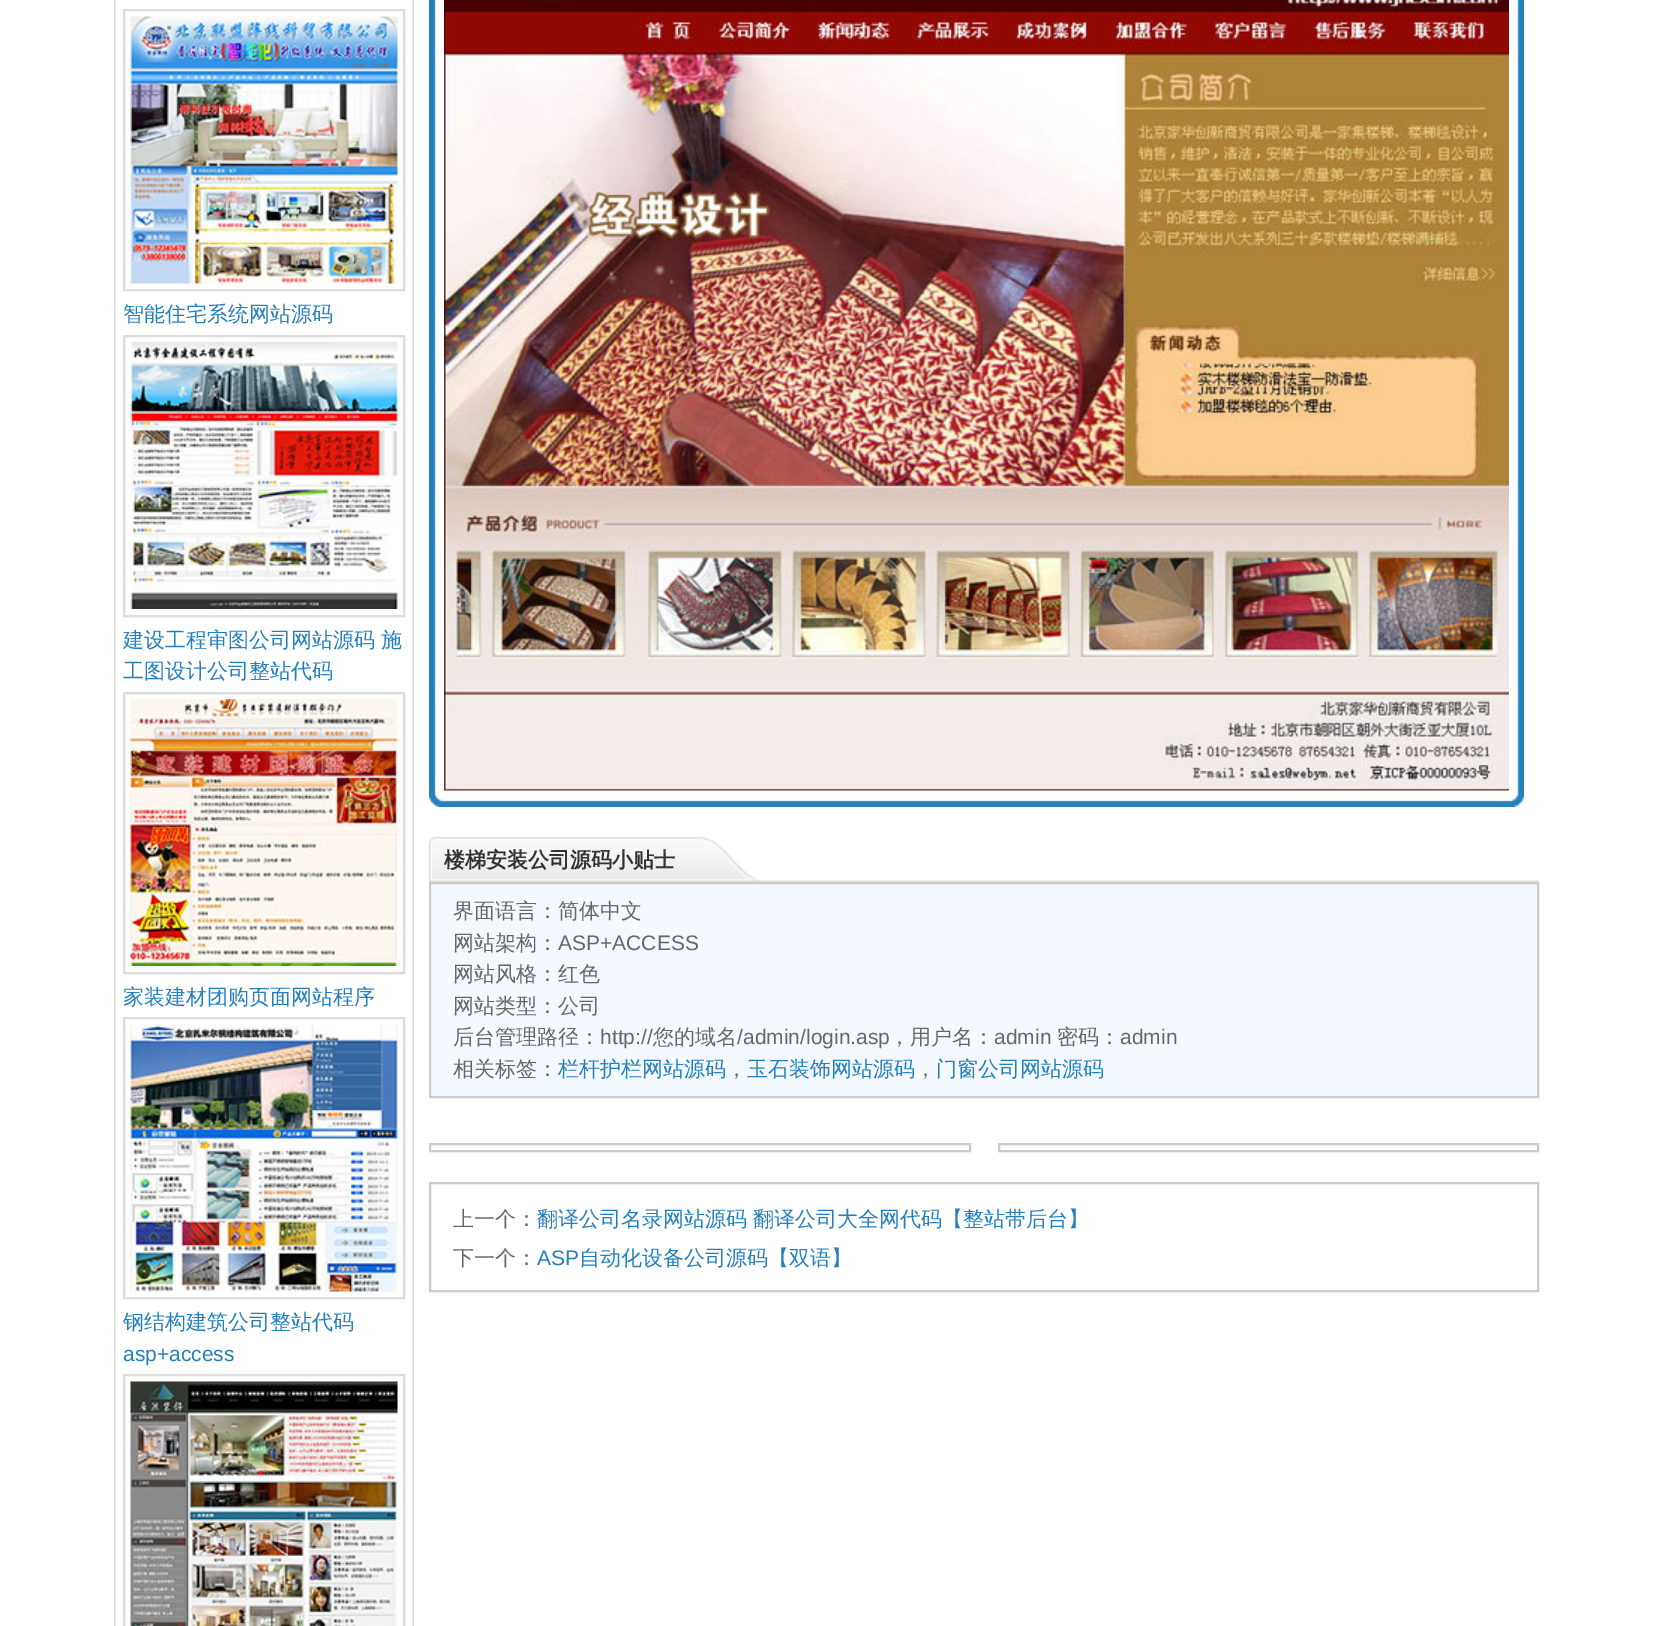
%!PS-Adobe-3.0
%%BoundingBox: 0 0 1668 1626
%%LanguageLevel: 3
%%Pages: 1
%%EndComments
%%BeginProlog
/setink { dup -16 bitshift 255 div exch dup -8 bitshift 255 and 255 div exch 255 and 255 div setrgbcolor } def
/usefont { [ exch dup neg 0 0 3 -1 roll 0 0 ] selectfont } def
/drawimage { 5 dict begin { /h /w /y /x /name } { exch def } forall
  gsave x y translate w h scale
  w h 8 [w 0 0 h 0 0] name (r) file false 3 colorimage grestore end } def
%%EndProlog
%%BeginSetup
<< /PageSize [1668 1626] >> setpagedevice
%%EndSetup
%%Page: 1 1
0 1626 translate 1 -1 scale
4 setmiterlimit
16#FFFFFF setink
0 0 1668 1626 rectfill
(img1.raw) 114 0 300 1626 drawimage
16#DDDDDD setink
2 setlinewidth
124 10 280 280 rectstroke
(img2.raw) 130 16 268 268 drawimage
/WenQuanYiZenHei-Medium 21 usefont
16#247FBD setink
123 321 moveto (智能住宅系统网站源码) show
16#DDDDDD setink
124 336 280 280 rectstroke
(img3.raw) 130 342 268 267 drawimage
16#247FBD setink
123 647 moveto (建设工程审图公司网站源码 施) show
123 678 moveto (工图设计公司整站代码) show
16#DDDDDD setink
124 693 280 280 rectstroke
(img4.raw) 130 699 268 267 drawimage
16#247FBD setink
123 1004 moveto (家装建材团购页面网站程序) show
16#DDDDDD setink
124 1018 280 280 rectstroke
(img5.raw) 130 1024 268 268 drawimage
16#247FBD setink
123 1329 moveto (钢结构建筑公司整站代码) show
/LiberationSans-Regular 21 usefont
123 1361 moveto (asp+access) show
16#DDDDDD setink
124 1375 280 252 rectstroke
(img6.raw) 130 1381 268 245 drawimage
(img7.raw) 429 0 1095 793 drawimage
(img8.raw) 429 793 1095 14 drawimage
(img9.raw) 444 0 1065 791 drawimage
(img10.raw) 429 880 1110 2 drawimage
(img11.raw) 429 837 330 44 drawimage
/WenQuanYiZenHei-Bold 21 usefont
16#333333 setink
444 867 moveto (楼梯安装公司源码小贴士) show
16#F4F9FF setink
430 883 moveto 1538 883 lineto 1538 1097 lineto 430 1097 lineto closepath gsave fill grestore
16#CCCCCC setink
stroke
/WenQuanYiZenHei-Medium 21 usefont
16#666666 setink
453 918 moveto (界面语言：简体中文) show
453 950 moveto (网站架构：) show
/LiberationSans-Regular 21 usefont
558 950 moveto (ASP+ACCESS) show
/WenQuanYiZenHei-Medium 21 usefont
[
    [(网站风格：红色) 453 981]
    [(网站类型：公司) 453 1013]
    [(后台管理路径：) 453 1044]
] { aload pop moveto show } forall
/LiberationSans-Regular 21 usefont
600 1044 moveto (http://) show
/WenQuanYiZenHei-Medium 21 usefont
653 1044 moveto (您的域名) show
/LiberationSans-Regular 21 usefont
737 1044 moveto (/admin/login.asp) show
/WenQuanYiZenHei-Medium 21 usefont
889 1044 moveto (，用户名：) show
/LiberationSans-Regular 21 usefont
994 1044 moveto (admin) show
/WenQuanYiZenHei-Medium 21 usefont
1057 1044 moveto (密码：) show
/LiberationSans-Regular 21 usefont
1120 1044 moveto (admin) show
/WenQuanYiZenHei-Medium 21 usefont
453 1076 moveto (相关标签：) show
16#247FBD setink
558 1076 moveto (栏杆护栏网站源码) show
16#666666 setink
726 1076 moveto (，) show
16#247FBD setink
747 1076 moveto (玉石装饰网站源码) show
16#666666 setink
915 1076 moveto (，) show
16#247FBD setink
936 1076 moveto (门窗公司网站源码) show
16#CCCCCC setink
430 1144 540 7 rectstroke
999 1144 539 7 rectstroke
430 1183 1108 108 rectstroke
16#666666 setink
453 1226 moveto (上一个：) show
16#247FBD setink
537 1226 moveto (翻译公司名录网站源码 翻译公司大全网代码【整站带后台】) show
16#666666 setink
453 1265 moveto (下一个：) show
/LiberationSans-Regular 21 usefont
16#247FBD setink
537 1265 moveto (ASP) show
/WenQuanYiZenHei-Medium 21 usefont
579 1265 moveto (自动化设备公司源码【双语】) show
showpage
%%EOF
